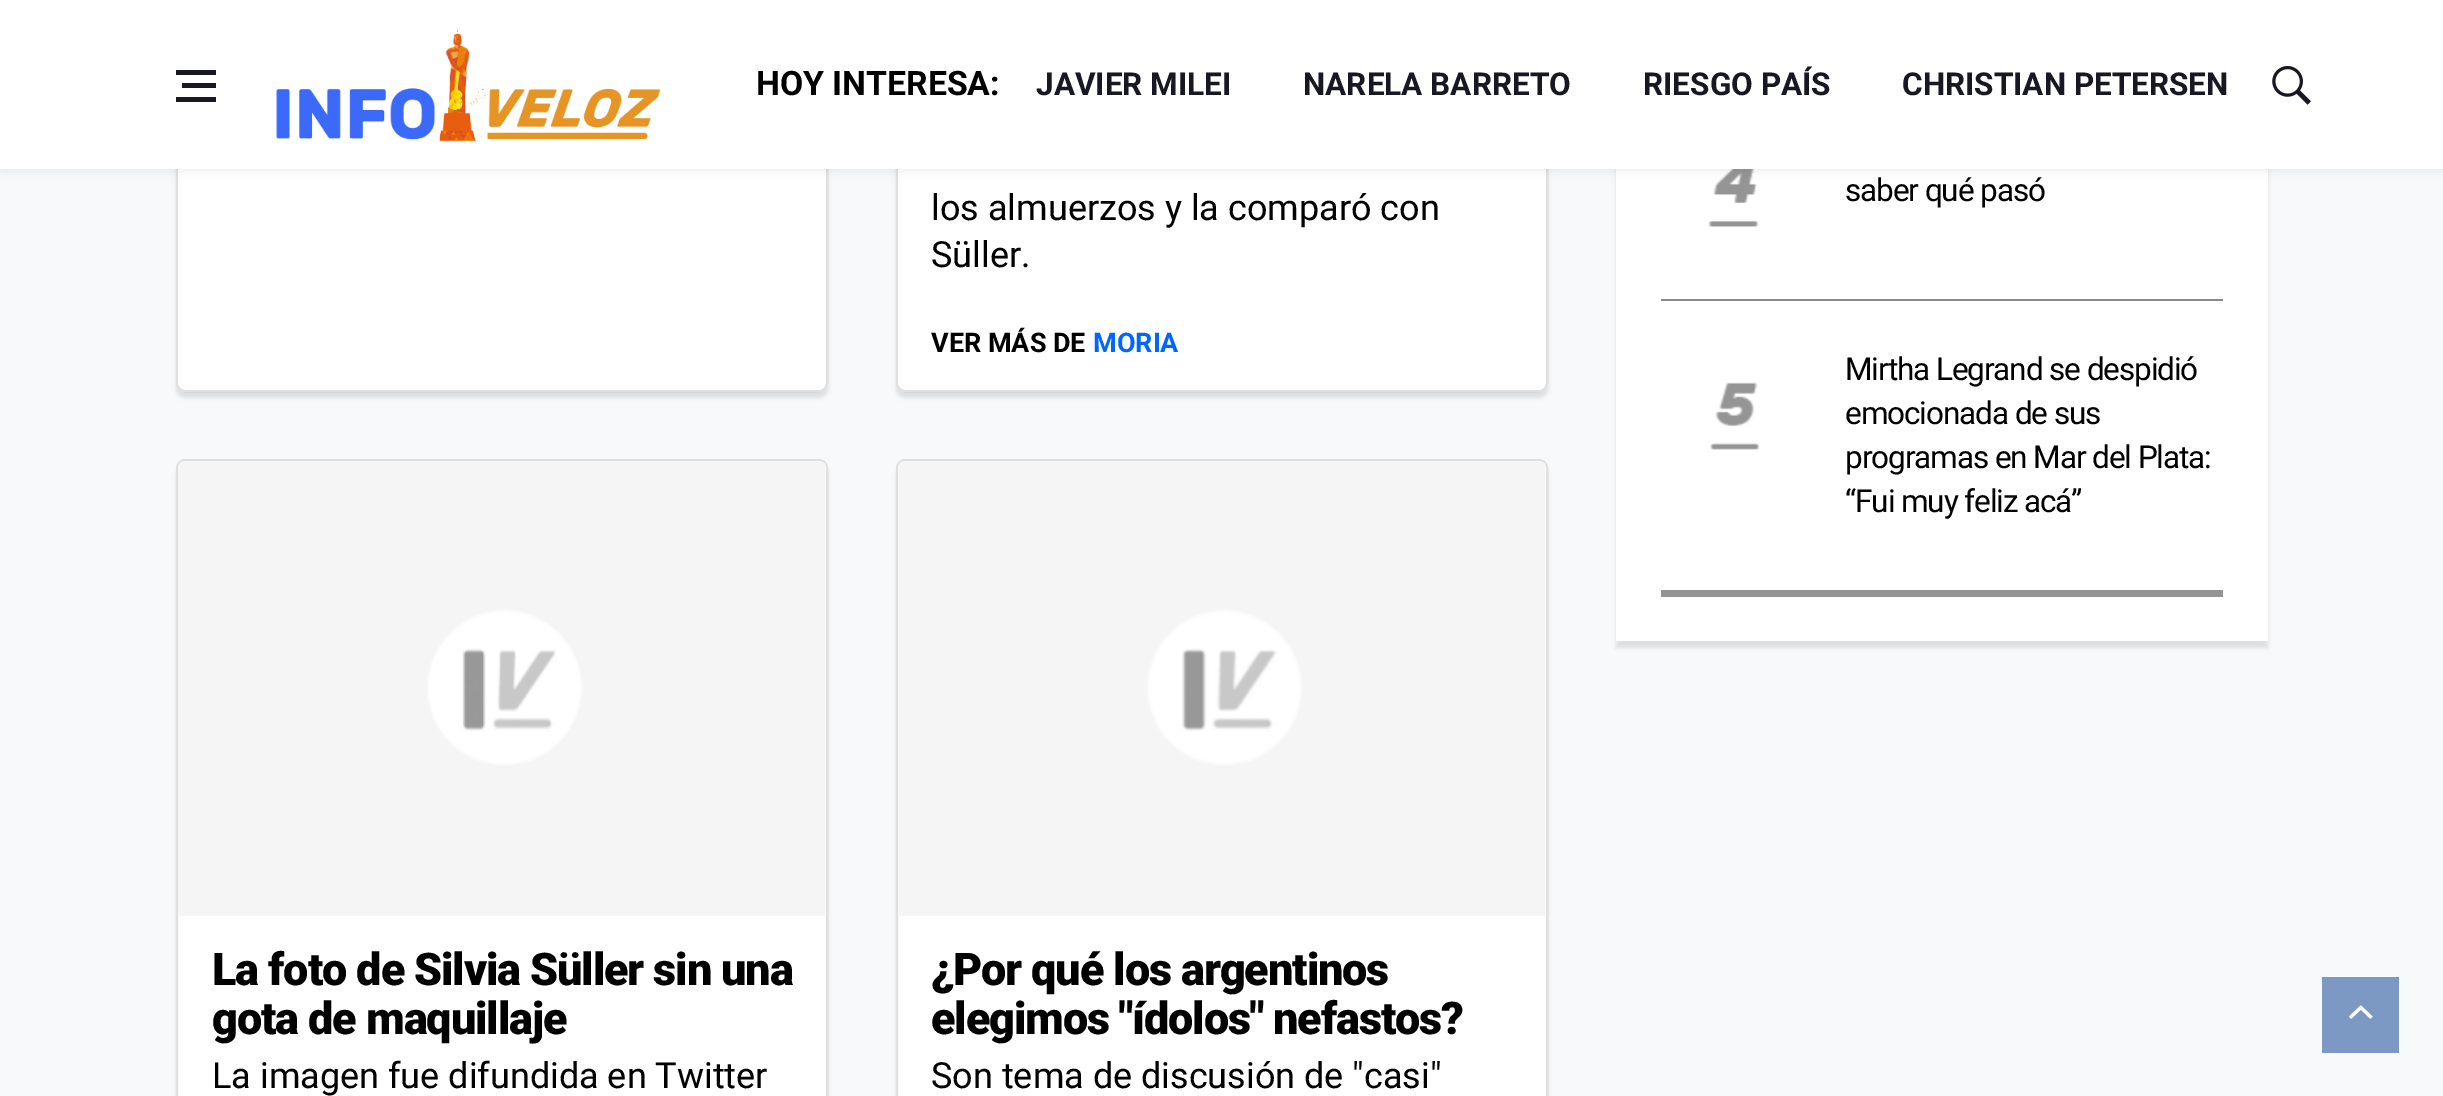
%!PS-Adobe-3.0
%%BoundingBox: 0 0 2443 1096
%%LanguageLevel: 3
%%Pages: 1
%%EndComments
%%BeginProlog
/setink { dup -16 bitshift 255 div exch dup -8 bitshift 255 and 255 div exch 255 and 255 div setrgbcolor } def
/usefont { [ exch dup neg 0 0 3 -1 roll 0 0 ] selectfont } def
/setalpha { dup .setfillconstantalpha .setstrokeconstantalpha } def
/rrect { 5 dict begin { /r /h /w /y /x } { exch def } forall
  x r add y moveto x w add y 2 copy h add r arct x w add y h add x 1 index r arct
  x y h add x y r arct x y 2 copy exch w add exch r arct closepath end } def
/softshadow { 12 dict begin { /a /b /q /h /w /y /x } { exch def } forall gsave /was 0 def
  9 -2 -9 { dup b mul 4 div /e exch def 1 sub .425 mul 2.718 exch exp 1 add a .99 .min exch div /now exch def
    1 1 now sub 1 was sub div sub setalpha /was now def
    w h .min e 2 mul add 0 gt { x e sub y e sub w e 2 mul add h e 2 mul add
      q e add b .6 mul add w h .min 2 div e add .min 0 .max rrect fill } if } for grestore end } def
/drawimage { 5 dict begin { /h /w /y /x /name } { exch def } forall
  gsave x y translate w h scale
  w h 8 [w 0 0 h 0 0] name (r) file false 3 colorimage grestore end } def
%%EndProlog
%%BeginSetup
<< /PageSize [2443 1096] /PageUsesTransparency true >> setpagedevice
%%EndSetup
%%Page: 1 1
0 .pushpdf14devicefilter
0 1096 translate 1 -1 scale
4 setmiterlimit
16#F8F9FA setink
0 0 2443 1096 rectfill
gsave
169 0 moveto 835 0 lineto 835 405 lineto 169 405 lineto closepath 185 -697 moveto 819 -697 lineto 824 -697 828 -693 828 -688 curveto 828 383 lineto 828 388 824 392 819 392 curveto 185 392 lineto 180 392 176 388 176 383 curveto 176 -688 lineto 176 -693 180 -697 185 -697 curveto closepath eoclip newpath
16#000000 setink
176 -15 652 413 9 2 0.1 softshadow
grestore
16#FFFFFF setink
176 -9 652 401 9 rrect fill
0.12 setalpha
16#000000 setink
2 setlinewidth
177 -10 650 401 8 rrect stroke
1 setalpha
16#FFFFFF setink
178 -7 moveto 826 -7 lineto 826 382 lineto 826 386 823 389 819 389 curveto 185 389 lineto 181 389 178 386 178 382 curveto closepath fill
gsave
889 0 moveto 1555 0 lineto 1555 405 lineto 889 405 lineto closepath 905 -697 moveto 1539 -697 lineto 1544 -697 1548 -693 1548 -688 curveto 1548 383 lineto 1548 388 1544 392 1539 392 curveto 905 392 lineto 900 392 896 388 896 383 curveto 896 -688 lineto 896 -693 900 -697 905 -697 curveto closepath eoclip newpath
16#000000 setink
896 -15 652 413 9 2 0.1 softshadow
grestore
896 -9 652 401 9 rrect fill
0.12 setalpha
16#000000 setink
897 -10 650 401 8 rrect stroke
1 setalpha
16#FFFFFF setink
898 -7 moveto 1546 -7 lineto 1546 382 lineto 1546 386 1543 389 1539 389 curveto 905 389 lineto 901 389 898 386 898 382 curveto closepath fill
16#000000 setink
1616 -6 652 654 0 2 0.1 softshadow
16#FFFFFF setink
1616 169 652 472 rectfill
(img5.raw) 1708 169 51 58 drawimage
16#000000 setink
0 0 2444 169 0 5.5 0.1 softshadow
[
    [0 0 2443 169 16#FFFFFF]
    [182 83 34 5 16#171821]
    [176 70 40 5 16#171821]
    [176 97 40 5 16#171821]
] { aload pop setink rectfill } forall
(img1.raw) 276 27 385 114 drawimage
/Roboto-Bold 33.75 usefont
16#000000 setink
756 95 moveto (HOY INTERESA:) show
/Roboto-Bold 31.5 usefont
16#171821 setink
[
    [(JAVIER MILEI) 1036 95]
    [(NARELA BARRETO) 1303 95]
    [(RIESGO PAÍS) 1643 95]
    [(CHRISTIAN PETERSEN) 1902 95]
] { aload pop moveto show } forall
(img2.raw) 2272 66 39 39 drawimage
/Roboto-Regular 36 usefont
16#000000 setink
931 220 moveto (los almuerzos y la comparó con) show
931 267 moveto (Süller.) show
/Roboto-Bold 27 usefont
931 352 moveto (VER MÁS DE) show
16#0066FF setink
1093 352 moveto (MORIA) show
16#000000 setink
176 466 652 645 9 2 0.1 softshadow
16#FFFFFF setink
176 459 652 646 9 rrect fill
0.12 setalpha
16#000000 setink
177 460 650 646 8 rrect stroke
1 setalpha
(img3.raw) 178 462 648 454 drawimage
/Roboto-Black 45 usefont
212 985 moveto -1.1 0 (La foto de Silvia Süller sin una) ashow
212 1034 moveto -1.1 0 (gota de maquillaje) ashow
/Roboto-Regular 36 usefont
212 1088 moveto (La imagen fue difundida en Twitter) show
896 466 652 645 9 2 0.1 softshadow
16#FFFFFF setink
896 459 652 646 9 rrect fill
0.12 setalpha
16#000000 setink
897 460 650 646 8 rrect stroke
1 setalpha
(img4.raw) 898 462 648 454 drawimage
/Roboto-Black 45 usefont
931 985 moveto -1.1 0 (¿Por qué los argentinos) ashow
931 1034 moveto -1.1 0 (elegimos "ídolos" nefastos?) ashow
/Roboto-Regular 36 usefont
931 1088 moveto (Son tema de discusión de "casi") show
16#949494 setink
1661 590 562 7 rectfill
16#888994 setink
1661 299 562 2 rectfill
/Roboto-Regular 31.5 usefont
16#000000 setink
1845 201 moveto -1.1 0 (saber qué pasó) ashow
(img6.raw) 1710 382 50 68 drawimage
1845 380 moveto -1.1 0 (Mirtha Legrand se despidió) ashow
1845 424 moveto -1.1 0 (emocionada de sus) ashow
1845 468 moveto -1.1 0 (programas en Mar del Plata:) ashow
1845 512 moveto -1.1 0 (“Fui muy feliz acá”) ashow
16#7C99C4 setink
2322 977 77 76 rectfill
(img7.raw) 2349 1005 24 14 drawimage
.poppdf14devicefilter showpage
%%EOF
